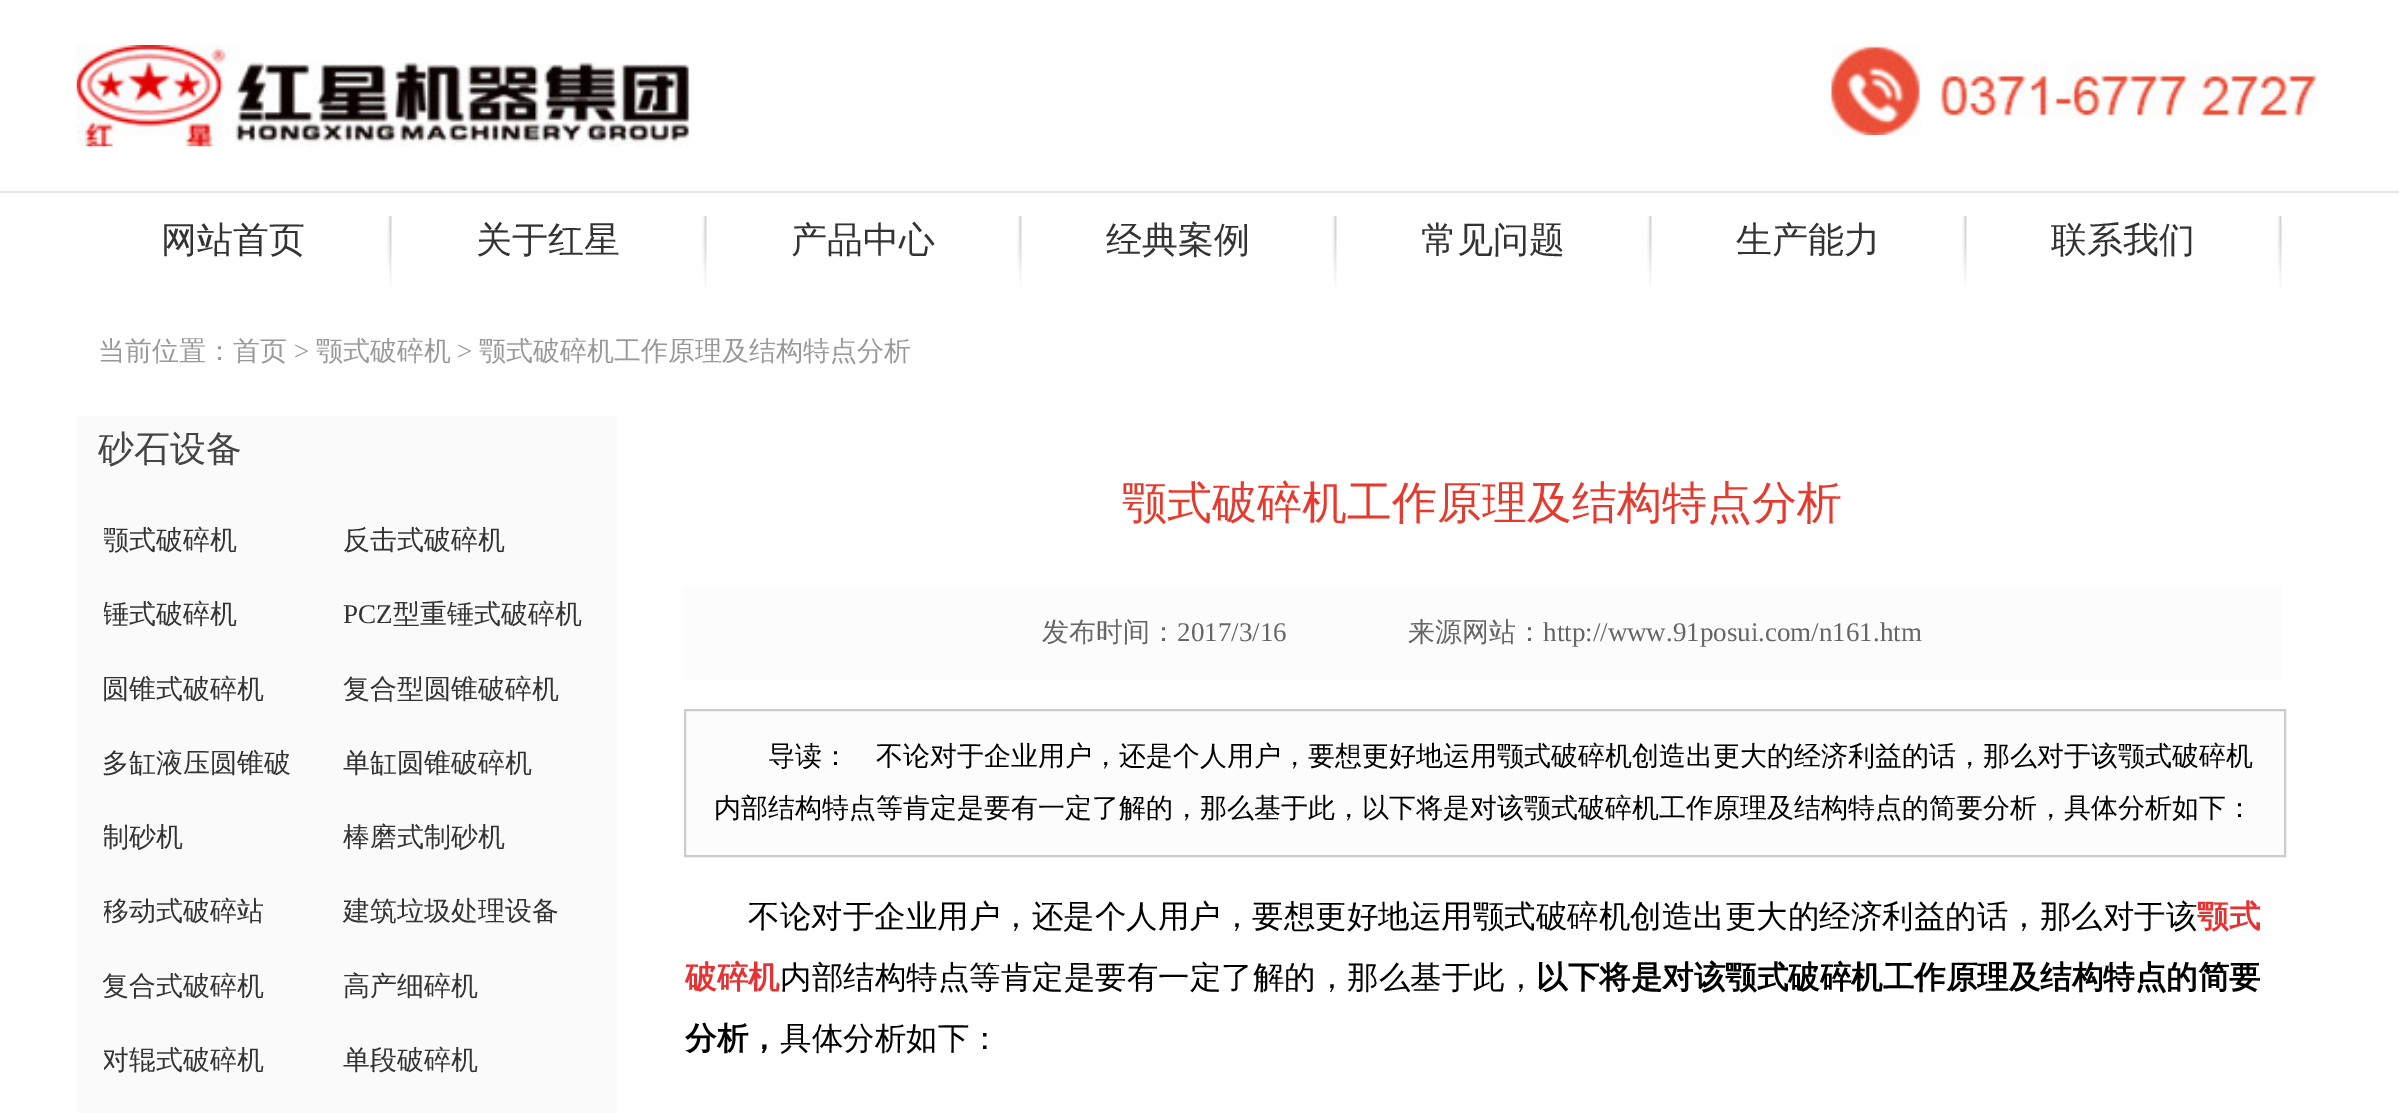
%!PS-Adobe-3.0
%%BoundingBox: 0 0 2399 1113
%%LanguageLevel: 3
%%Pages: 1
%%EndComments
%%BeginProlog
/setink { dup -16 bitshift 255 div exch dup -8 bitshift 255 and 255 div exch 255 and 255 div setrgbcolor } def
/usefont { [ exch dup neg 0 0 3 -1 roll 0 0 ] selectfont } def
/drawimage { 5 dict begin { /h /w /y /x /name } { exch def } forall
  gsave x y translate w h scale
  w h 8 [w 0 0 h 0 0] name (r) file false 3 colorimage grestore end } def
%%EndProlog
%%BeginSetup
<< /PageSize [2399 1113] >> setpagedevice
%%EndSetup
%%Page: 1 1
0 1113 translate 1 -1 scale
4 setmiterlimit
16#FFFFFF setink
0 0 2399 1113 rectfill
(img1.raw) 76 45 614 102 drawimage
(img2.raw) 1831 45 487 90 drawimage
16#E4E4E4 setink
0 191 2399 2 rectfill
(img3.raw) 387 216 5 72 drawimage
/WenQuanYiZenHei-Medium 36 usefont
16#333333 setink
161 252 moveto (网站首页) show
(img3.raw) 702 216 5 72 drawimage
476 252 moveto (关于红星) show
(img3.raw) 1017 216 5 72 drawimage
791 252 moveto (产品中心) show
(img3.raw) 1332 216 5 72 drawimage
1106 252 moveto (经典案例) show
(img3.raw) 1647 216 5 72 drawimage
1421 252 moveto (常见问题) show
(img3.raw) 1962 216 5 72 drawimage
1736 252 moveto (生产能力) show
(img3.raw) 2277 216 5 72 drawimage
2051 252 moveto (联系我们) show
/WenQuanYiZenHei-Medium 27 usefont
16#999999 setink
98 360 moveto (当前位置：首页) show
/LiberationSerif-Regular 27 usefont
294 360 moveto (>) show
/WenQuanYiZenHei-Medium 27 usefont
316 360 moveto (颚式破碎机) show
/LiberationSerif-Regular 27 usefont
457 360 moveto (>) show
/WenQuanYiZenHei-Medium 27 usefont
479 360 moveto (颚式破碎机工作原理及结构特点分析) show
16#FAFAFA setink
77 416 540 697 rectfill
/WenQuanYiZenHei-Medium 36 usefont
16#444444 setink
98 461 moveto (砂石设备) show
gsave
104 504 486 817 rectclip
/WenQuanYiZenHei-Medium 27 usefont
16#333333 setink
102 549 moveto (颚式破碎机) show
grestore
/WenQuanYiZenHei-Medium 27 usefont
16#333333 setink
343 549 moveto (反击式破碎机) show
gsave
104 504 486 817 rectclip
102 623 moveto (锤式破碎机) show
grestore
/LiberationSerif-Regular 27 usefont
343 623 moveto (PCZ) show
/WenQuanYiZenHei-Medium 27 usefont
[
    [(型重锤式破碎机) 393 623]
    [(圆锥式破碎机) 102 698]
    [(复合型圆锥破碎机) 343 698]
    [(多缸液压圆锥破) 102 772]
    [(单缸圆锥破碎机) 343 772]
] { aload pop moveto show } forall
gsave
104 504 486 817 rectclip
102 846 moveto (制砂机) show
grestore
343 846 moveto (棒磨式制砂机) show
gsave
104 504 486 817 rectclip
102 920 moveto (移动式破碎站) show
grestore
[
    [(建筑垃圾处理设备) 343 920]
    [(复合式破碎机) 102 995]
    [(高产细碎机) 343 995]
] { aload pop moveto show } forall
gsave
104 504 486 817 rectclip
102 1069 moveto (对辊式破碎机) show
grestore
343 1069 moveto (单段破碎机) show
/WenQuanYiZenHei-Medium 45 usefont
16#E43B2E setink
1122 518 moveto (颚式破碎机工作原理及结构特点分析) show
16#FCFCFC setink
684 587 1598 93 rectfill
/WenQuanYiZenHei-Medium 27 usefont
16#666666 setink
1042 641 moveto (发布时间：) show
/LiberationSerif-Regular 27 usefont
1177 641 moveto (2017/3/16) show
/WenQuanYiZenHei-Medium 27 usefont
1408 641 moveto (来源网站：) show
/LiberationSerif-Regular 27 usefont
1543 641 moveto (http://www.91posui.com/n161.htm) show
16#FCFCFC setink
685 710 moveto 2285 710 lineto 2285 856 lineto 685 856 lineto closepath gsave fill grestore
16#CCCCCC setink
2 setlinewidth
stroke
/WenQuanYiZenHei-Medium 27 usefont
16#000000 setink
768 765 moveto (导读：　不论对于企业用户，还是个人用户，要想更好地运用颚式破碎机创造出更大的经济利益的话，那么对于该颚式破碎机) show
714 817 moveto (内部结构特点等肯定是要有一定了解的，那么基于此，以下将是对该颚式破碎机工作原理及结构特点的简要分析，具体分析如下：) show
/WenQuanYiZenHei-Medium 31.5 usefont
748 927 moveto (不论对于企业用户，还是个人用户，要想更好地运用颚式破碎机创造出更大的经济利益的话，那么对于该) show
/WenQuanYiZenHei-Bold 31.5 usefont
16#E53333 setink
2197 927 moveto (颚式) show
685 988 moveto (破碎机) show
/WenQuanYiZenHei-Medium 31.5 usefont
16#000000 setink
780 988 moveto (内部结构特点等肯定是要有一定了解的，那么基于此，) show
/WenQuanYiZenHei-Bold 31.5 usefont
1536 988 moveto (以下将是对该颚式破碎机工作原理及结构特点的简要) show
685 1049 moveto (分析，) show
/WenQuanYiZenHei-Medium 31.5 usefont
780 1049 moveto (具体分析如下：) show
showpage
%%EOF
